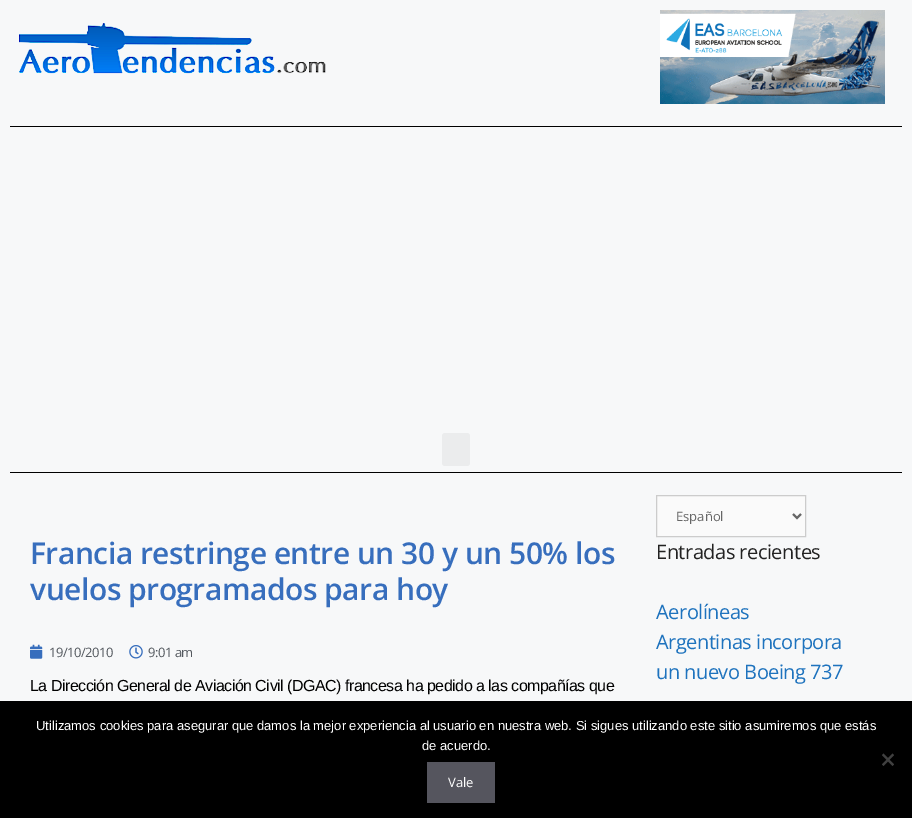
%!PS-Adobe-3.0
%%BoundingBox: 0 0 912 818
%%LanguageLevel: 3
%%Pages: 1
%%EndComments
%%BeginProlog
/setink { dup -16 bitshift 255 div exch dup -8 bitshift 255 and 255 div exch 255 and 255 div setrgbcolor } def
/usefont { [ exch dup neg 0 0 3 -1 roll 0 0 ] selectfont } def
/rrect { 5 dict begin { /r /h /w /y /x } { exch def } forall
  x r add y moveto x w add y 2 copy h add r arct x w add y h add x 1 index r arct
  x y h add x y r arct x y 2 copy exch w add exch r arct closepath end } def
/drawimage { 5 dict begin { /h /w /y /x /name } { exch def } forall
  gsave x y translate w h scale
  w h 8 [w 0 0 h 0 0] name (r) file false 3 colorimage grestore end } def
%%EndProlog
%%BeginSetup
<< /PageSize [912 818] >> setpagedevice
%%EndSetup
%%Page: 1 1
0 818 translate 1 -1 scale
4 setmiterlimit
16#F7F8F9 setink
0 0 912 818 rectfill
(img1.raw) 19 23 307 51 drawimage
(img2.raw) 660 10 225 94 drawimage
16#000000 setink
10 126 892 1 rectfill
16#EBECED setink
442 433 28 33 3 rrect fill
16#000000 setink
10 472 892 1 rectfill
/OpenSans-SemiBold 30 usefont
16#376EBD setink
30 564 moveto -0.5 0 (Francia restringe entre un 30 y un 50% los) ashow
30 600 moveto -0.5 0 (vuelos programados para hoy) ashow
(img3.raw) 30 644 13 15 drawimage
/OpenSans-Regular 13 usefont
16#54595F setink
49 657 moveto -0.5 0 (19/10/2010) ashow
(img4.raw) 129 645 14 14 drawimage
148 657 moveto -0.5 0 (9:01 am) ashow
/LiberationSans-Regular 16 usefont
16#000000 setink
30 691 moveto -0.5 0 (La Dirección General de Aviación Civil \(DGAC\) francesa ha pedido a las compañías que) ashow
16#FAFAFA setink
656.5 495.5 moveto 805.5 495.5 lineto 805.5 536.5 lineto 656.5 536.5 lineto closepath gsave fill grestore
16#CCCCCC setink
stroke
16#666666 setink
2 setlinewidth
793 514 moveto 797 518 lineto 801 514 lineto stroke
/OpenSans-Regular 13 usefont
676 521 moveto (Español) show
/OpenSans-Regular 20 usefont
16#222222 setink
656 559 moveto -0.5 0 (Entradas recientes) ashow
16#1E73BE setink
656 619 moveto -0.5 0 (Aerolíneas) ashow
656 649 moveto -0.5 0 (Argentinas incorpora) ashow
656 679 moveto -0.5 0 (un nuevo Boeing 737) ashow
16#000000 setink
0 701 912 117 rectfill
/LiberationSans-Regular 13 usefont
16#FFFFFF setink
36 730 moveto (Utilizamos cookies para asegurar que damos la mejor experiencia al usuario en nuestra web. Si sigues utilizando este sitio asumiremos que estás) show
422 750 moveto (de acuerdo.) show
16#404040 setink
892.5 753.5 moveto 894 755 lineto 883.5 766 lineto 882 764.5 lineto closepath fill
882 755 moveto 883.5 753.5 lineto 894 764.5 lineto 892.5 766 lineto closepath fill
16#55555E setink
427 762 68 41 rectfill
/OpenSans-Regular 13 usefont
16#FFFFFF setink
448 787 moveto (Vale) show
showpage
%%EOF
